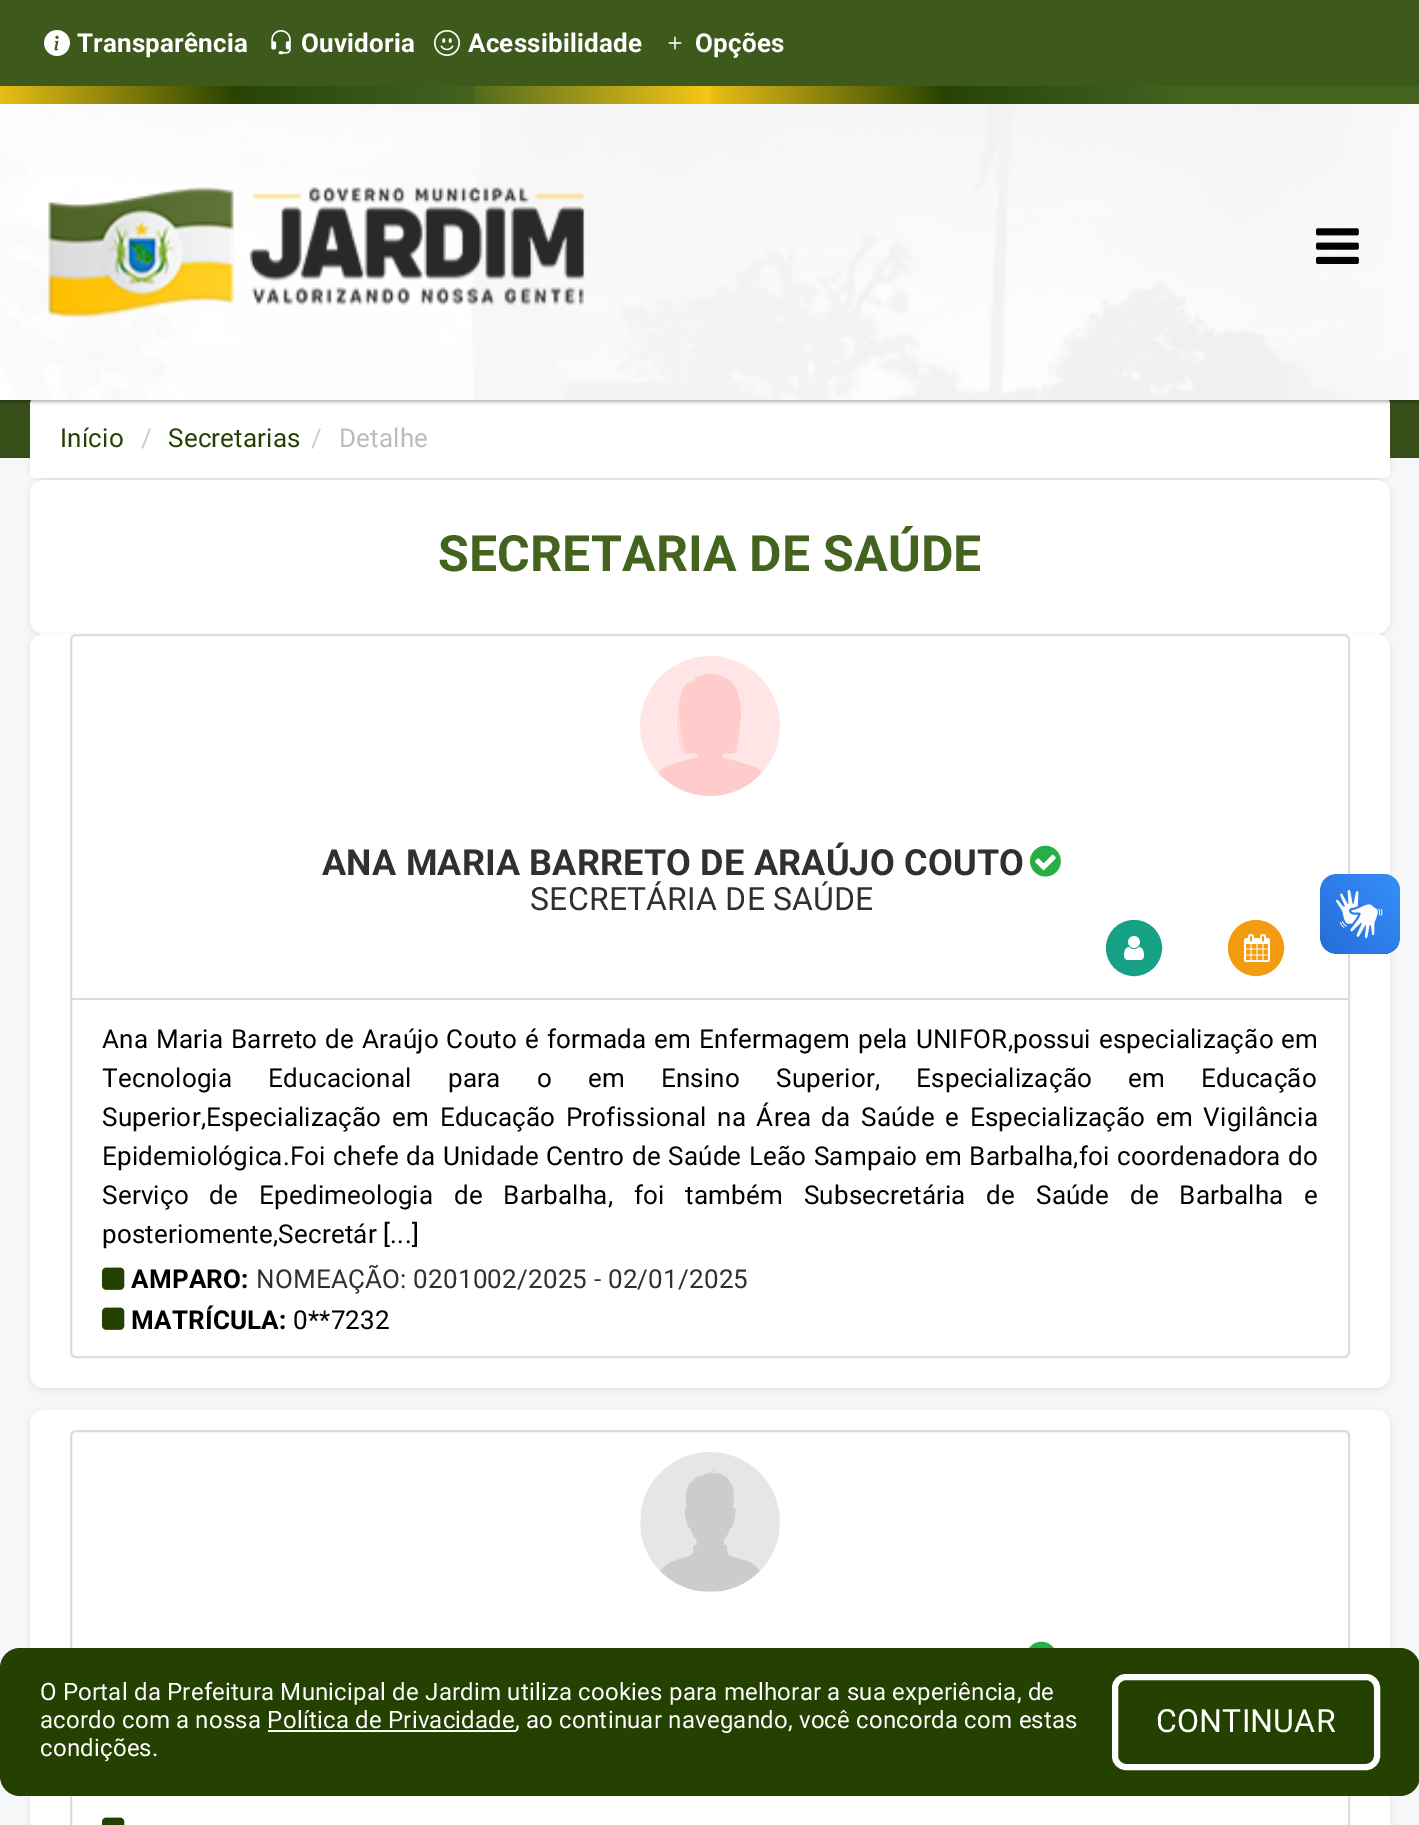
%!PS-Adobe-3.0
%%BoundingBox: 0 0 1419 1825
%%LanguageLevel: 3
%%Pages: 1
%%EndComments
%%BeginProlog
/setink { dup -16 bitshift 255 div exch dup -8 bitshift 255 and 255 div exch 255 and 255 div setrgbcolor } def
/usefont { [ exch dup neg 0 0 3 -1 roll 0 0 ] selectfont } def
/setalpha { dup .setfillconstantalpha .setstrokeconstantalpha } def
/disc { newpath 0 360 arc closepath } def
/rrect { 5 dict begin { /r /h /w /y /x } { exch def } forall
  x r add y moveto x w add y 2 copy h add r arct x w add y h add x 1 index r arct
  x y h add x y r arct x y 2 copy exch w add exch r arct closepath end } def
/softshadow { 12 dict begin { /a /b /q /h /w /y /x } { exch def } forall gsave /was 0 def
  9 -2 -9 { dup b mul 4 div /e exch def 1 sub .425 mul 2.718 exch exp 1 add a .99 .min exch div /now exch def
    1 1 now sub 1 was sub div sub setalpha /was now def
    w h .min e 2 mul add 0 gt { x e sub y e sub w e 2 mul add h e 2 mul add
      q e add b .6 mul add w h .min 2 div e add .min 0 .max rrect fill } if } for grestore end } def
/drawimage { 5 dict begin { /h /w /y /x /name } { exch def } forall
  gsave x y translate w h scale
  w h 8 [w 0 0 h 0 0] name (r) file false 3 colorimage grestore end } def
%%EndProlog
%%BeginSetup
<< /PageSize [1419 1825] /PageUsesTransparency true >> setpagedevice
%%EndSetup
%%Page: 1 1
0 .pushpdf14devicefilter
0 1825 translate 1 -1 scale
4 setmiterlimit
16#F6F7F8 setink
0 0 1419 1825 rectfill
16#030047 setink
30 400 1360 80 14 3 0.09 softshadow
16#364F19 setink
0 400 1419 58 rectfill
16#030047 setink
30 482 1360 154 14 3 0.09 softshadow
16#FFFFFF setink
30 398 1360 80 6 rrect fill
16#000000 setink
0 2 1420 400 0 2 0.3 softshadow
(img1.raw) 0 104 1419 296 drawimage
16#3D591C setink
0 0 1419 86 rectfill
(img2.raw) 44 30 26 26 drawimage
/Roboto-Bold 26 usefont
16#FFFFFF setink
77 52 moveto 0.2 0 (Transparência) ashow
(img3.raw) 271 30 20 25 drawimage
301 52 moveto 0.2 0 (Ouvidoria) ashow
(img4.raw) 434 30 26 26 drawimage
468 52 moveto 0.2 0 (Acessibilidade) ashow
(img5.raw) 668 36 14 14 drawimage
695 52 moveto 0.2 0 (Opções) ashow
(img6.raw) 0 86 236 18 drawimage
(img7.raw) 236 86 238 18 drawimage
(img8.raw) 474 86 236 18 drawimage
(img9.raw) 710 86 236 18 drawimage
(img10.raw) 946 86 238 18 drawimage
16#44631F setink
1184 86 235 18 rectfill
(img11.raw) 48 187 537 131 drawimage
(img12.raw) 1316 228 43 36 drawimage
/Roboto-Regular 26 usefont
16#244101 setink
60 447 moveto 0.2 0 (Início) ashow
16#CCCCCC setink
141 447 moveto 0.2 0 (/) ashow
16#244101 setink
168 447 moveto 0.2 0 (Secretarias) ashow
16#CCCCCC setink
311 447 moveto 0.2 0 (/) ashow
16#BBBBBB setink
339 447 moveto 0.2 0 (Detalhe) ashow
16#FFFFFF setink
30 480 1360 154 14 rrect fill
/Roboto-Bold 50 usefont
16#44631F setink
438 571 moveto 0.2 0 (SECRETARIA DE SAÚDE) ashow
16#030047 setink
30 636 1360 754 14 3 0.09 softshadow
16#FFFFFF setink
30 634 1360 754 14 rrect fill
16#DDDDDD setink
2 setlinewidth
71 635 1278 722 5 rrect stroke
72 998 1276 2 rectfill
(img13.raw) 640 656 140 140 drawimage
/Roboto-Bold 36 usefont
16#303030 setink
322 875 moveto 0.2 0 (ANA MARIA BARRETO DE ARAÚJO COUTO) ashow
(img14.raw) 1030 845 31 32 drawimage
/Roboto-Regular 32 usefont
530 910 moveto 0.2 0 (SECRETÁRIA DE SAÚDE) ashow
16#16A085 setink
1134 948 27 disc gsave fill grestore
stroke
(img15.raw) 1124 936 20 24 drawimage
16#F39C12 setink
1256 948 27 disc gsave fill grestore
stroke
(img16.raw) 1244 934 26 28 drawimage
/Roboto-Regular 26 usefont
16#000000 setink
102 1048 moveto 1.25 0 32 0.2 0 (Ana Maria Barreto de Araújo Couto é formada em Enfermagem pela UNIFOR,possui especialização em) awidthshow
102 1087 moveto 29.5 0 32 0.2 0 (Tecnologia Educacional para o em Ensino Superior, Especialização em Educação) awidthshow
102 1126 moveto 3.9 0 32 0.2 0 (Superior,Especialização em Educação Profissional na Área da Saúde e Especialização em Vigilância) awidthshow
102 1165 moveto 0.75 0 32 0.2 0 (Epidemiológica.Foi chefe da Unidade) awidthshow
546 1165 moveto 0.75 0 32 0.2 0 (Centro de Saúde Leão Sampaio em Barbalha,foi coordenadora do) awidthshow
102 1204 moveto 14 0 32 0.2 0 (Serviço de Epedimeologia de Barbalha, foi também Subsecretária de Saúde de Barbalha e) awidthshow
102 1243 moveto 0.2 0 (posteriomente,Secretár [...]) ashow
(img17.raw) 102 1267 23 23 drawimage
/Roboto-Bold 26 usefont
131 1288 moveto 0.2 0 (AMPARO:) ashow
/Roboto-Regular 26 usefont
16#303030 setink
256 1288 moveto 0.2 0 (NOMEAÇÃO: 0201002/2025 - 02/01/2025) ashow
(img17.raw) 102 1307 23 23 drawimage
/Roboto-Bold 26 usefont
16#000000 setink
131 1329 moveto 0.2 0 (MATRÍCULA:) ashow
/Roboto-Regular 26 usefont
293 1329 moveto 0.2 0 (0**7232) ashow
16#030047 setink
30 1412 1360 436 14 3 0.09 softshadow
16#FFFFFF setink
30 1410 1360 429 14 rrect fill
16#DDDDDD setink
71 1431 1278 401 5 rrect stroke
(img18.raw) 640 1452 140 140 drawimage
(img19.raw) 1029 1641 25 7 drawimage
(img20.raw) 102 1817 23 8 drawimage
(img21.raw) 1320 874 80 80 drawimage
(img22.raw) 1320 874 80 80 drawimage
16#244101 setink
0 1648 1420 148 20 rrect fill
/Roboto-Regular 24 usefont
16#FFFFFF setink
40 1700 moveto 0.2 0 (O Portal da Prefeitura Municipal de Jardim utiliza cookies para melhorar a sua experiência, de) ashow
40 1728 moveto 0.2 0 (acordo com a nossa Política de Privacidade) ashow
268 1730 248 2 rectfill
515 1728 moveto 0.2 0 (, ao continuar navegando, você concorda com estas) ashow
40 1756 moveto 0.2 0 (condições.) ashow
6 setlinewidth
1115 1677 262 90 11 rrect stroke
/Roboto-Regular 32 usefont
1156 1732 moveto 0.2 0 (CONTINUAR) ashow
.poppdf14devicefilter showpage
%%EOF
